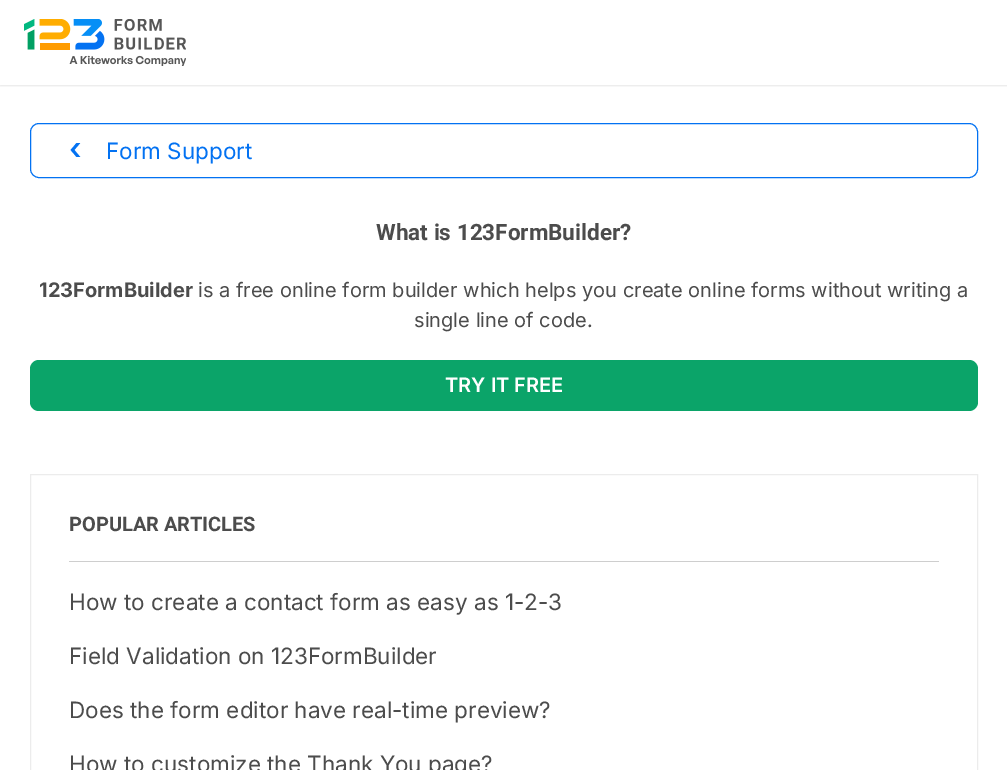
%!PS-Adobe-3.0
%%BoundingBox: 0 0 1007 770
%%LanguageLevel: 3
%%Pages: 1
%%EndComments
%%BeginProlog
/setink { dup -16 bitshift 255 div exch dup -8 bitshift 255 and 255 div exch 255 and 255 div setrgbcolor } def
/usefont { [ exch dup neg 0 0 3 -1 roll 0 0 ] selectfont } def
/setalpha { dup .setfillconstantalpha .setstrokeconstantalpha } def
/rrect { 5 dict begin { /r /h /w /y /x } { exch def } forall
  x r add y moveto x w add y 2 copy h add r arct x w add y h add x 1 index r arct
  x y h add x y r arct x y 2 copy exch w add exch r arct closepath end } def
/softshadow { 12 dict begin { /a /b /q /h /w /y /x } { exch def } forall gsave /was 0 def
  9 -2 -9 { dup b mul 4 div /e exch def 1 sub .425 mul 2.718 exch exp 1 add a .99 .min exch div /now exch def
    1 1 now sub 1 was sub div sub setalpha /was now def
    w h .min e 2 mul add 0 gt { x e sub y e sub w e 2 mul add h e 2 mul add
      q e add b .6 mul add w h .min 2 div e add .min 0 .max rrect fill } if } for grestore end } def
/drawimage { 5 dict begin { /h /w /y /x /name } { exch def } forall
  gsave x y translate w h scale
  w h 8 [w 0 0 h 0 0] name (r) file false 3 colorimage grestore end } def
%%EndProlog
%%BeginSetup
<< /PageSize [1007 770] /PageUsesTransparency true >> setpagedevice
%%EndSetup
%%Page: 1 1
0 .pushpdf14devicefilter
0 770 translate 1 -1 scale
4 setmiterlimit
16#FFFFFF setink
0 0 1007 770 rectfill
gsave
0 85 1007 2 rectclip
16#000000 setink
0 1 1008 85 0 1 0.1 softshadow
grestore
(img1.raw) 24 19 162 47 drawimage
16#0372F2 setink
30.5 123.5 947 54 8.5 rrect stroke
/Inter-SemiBold 30 usefont
69 159 moveto (‹) show
/Inter-Regular 22.5 usefont
106 159 moveto (Form Support) show
/Roboto-Bold 22.5 usefont
16#4C4C4C setink
376 240 moveto (What is 123FormBuilder?) show
/Inter-Bold 20 usefont
39 297 moveto (123FormBuilder) show
/Inter-Regular 20 usefont
198 297 moveto (is a free online form builder which helps you create online forms without writing a) show
414 327 moveto (single line of code.) show
16#0BA469 setink
30 360 948 51 9 rrect fill
/Inter-SemiBold 20 usefont
16#FFFFFF setink
445 392 moveto (TRY IT FREE) show
16#ECECEC setink
30.5 474.5 947 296 rectstroke
16#CECECE setink
69 561 870 1 rectfill
/Roboto-Bold 20 usefont
16#4C4C4C setink
69 531 moveto (POPULAR ARTICLES) show
/Inter-Regular 22.5 usefont
[
    [(How to create a contact form as easy as 1-2-3) 69 610]
    [(Field Validation on 123FormBuilder) 69 664]
    [(Does the form editor have real-time preview?) 69 718]
    [(How to customize the Thank You page?) 69 772]
] { aload pop moveto show } forall
.poppdf14devicefilter showpage
%%EOF
